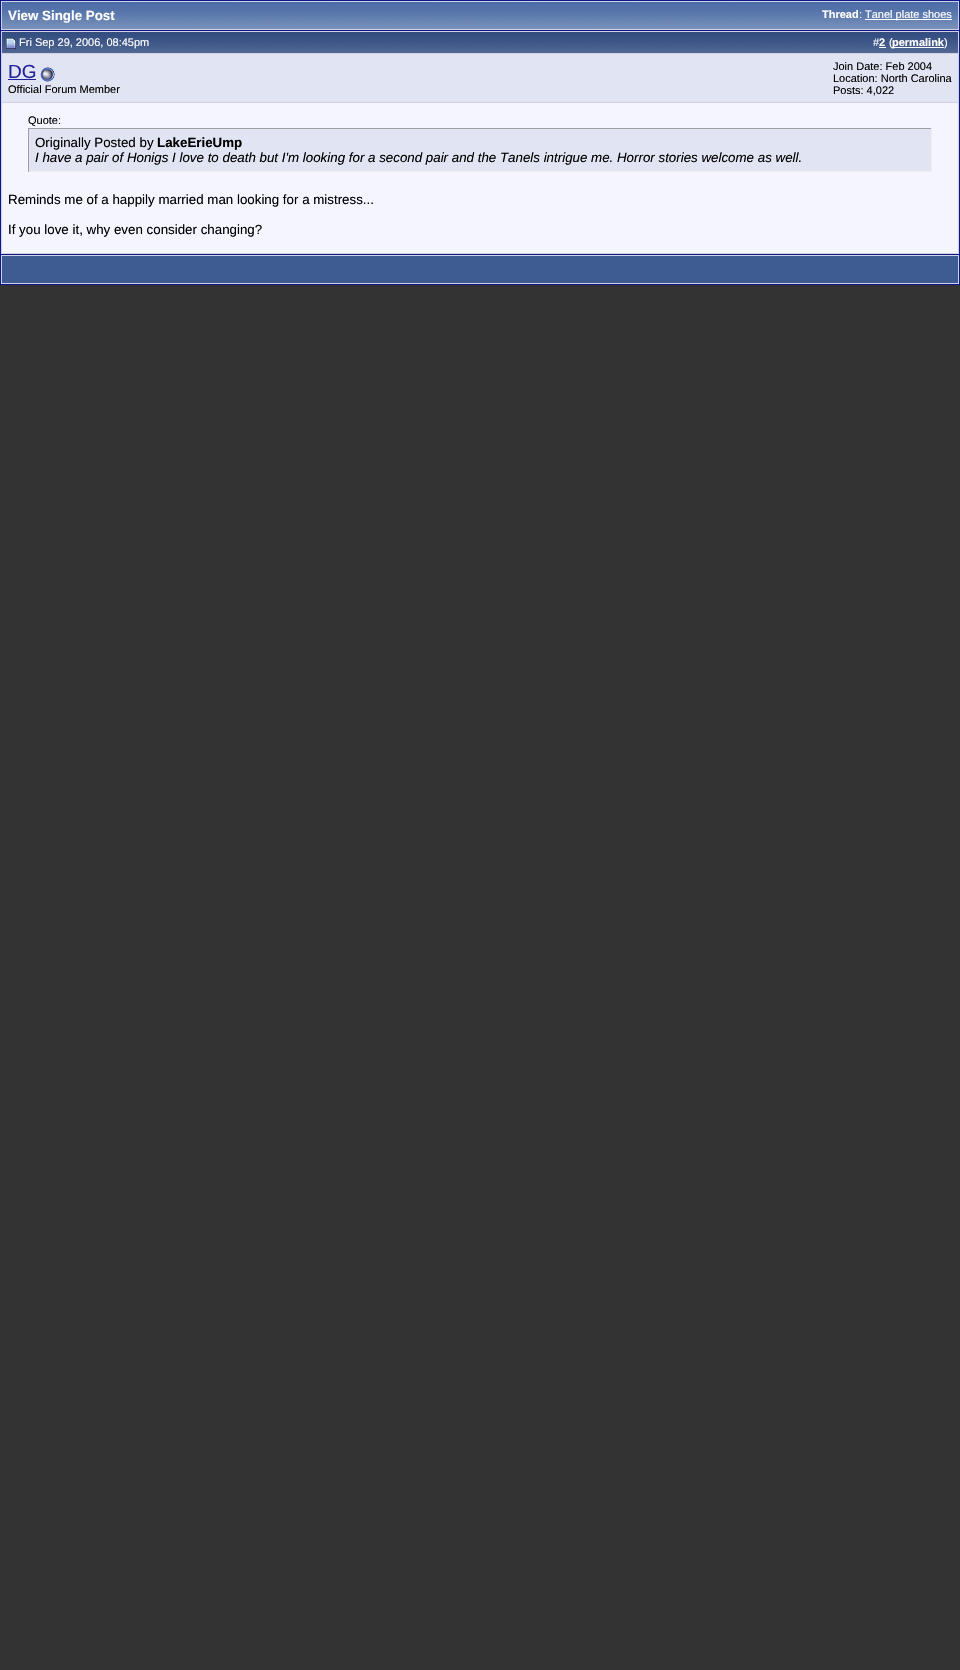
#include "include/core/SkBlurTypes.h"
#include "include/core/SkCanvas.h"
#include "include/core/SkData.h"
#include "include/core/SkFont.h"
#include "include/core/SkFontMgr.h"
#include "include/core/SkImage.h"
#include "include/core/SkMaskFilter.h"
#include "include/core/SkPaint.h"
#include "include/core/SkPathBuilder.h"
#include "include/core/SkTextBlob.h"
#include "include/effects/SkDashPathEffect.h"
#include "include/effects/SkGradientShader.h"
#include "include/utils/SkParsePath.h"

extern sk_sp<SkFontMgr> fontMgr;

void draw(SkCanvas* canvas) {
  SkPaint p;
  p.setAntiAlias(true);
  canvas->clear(SkColorSetRGB(51, 51, 51));
  p.setColor(SkColorSetRGB(209, 209, 225));
  canvas->drawRect(SkRect::MakeLTRB(1, 1, 959, 30), p);
  p.setColor(SkColorSetRGB(11, 25, 140));
  canvas->drawRect(SkRect::MakeLTRB(0, 0, 960, 1), p);
  canvas->drawRect(SkRect::MakeLTRB(959, 0, 960, 30), p);
  canvas->drawRect(SkRect::MakeLTRB(0, 0, 1, 30), p);
  canvas->drawImageRect(SkImages::DeferredFromEncodedData(SkData::MakeFromFileName("images/1.png")), SkRect::MakeLTRB(2, 2, 958, 29), SkSamplingOptions());
  p.setColor(SK_ColorWHITE);
  canvas->drawRect(SkRect::MakeLTRB(865, 19, 952, 20), p);
  p.setColor(SkColorSetRGB(209, 209, 225));
  canvas->drawRect(SkRect::MakeLTRB(0.5f, 30.5f, 959.5f, 254.5f), p);
  p.setStyle(SkPaint::kStroke_Style);
  p.setStrokeWidth(1);
  p.setColor(SkColorSetRGB(11, 25, 140));
  canvas->drawRect(SkRect::MakeLTRB(0.5f, 30.5f, 959.5f, 254.5f), p);
  canvas->drawImageRect(SkImages::DeferredFromEncodedData(SkData::MakeFromFileName("images/2.png")), SkRect::MakeLTRB(2, 32, 958, 53), SkSamplingOptions());
  canvas->drawImageRect(SkImages::DeferredFromEncodedData(SkData::MakeFromFileName("images/3.png")), SkRect::MakeLTRB(6, 38, 16, 49), SkSamplingOptions());
  p.setStyle(SkPaint::kFill_Style);
  p.setColor(SK_ColorWHITE);
  canvas->drawRect(SkRect::MakeLTRB(879, 47, 886, 48), p);
  canvas->drawRect(SkRect::MakeLTRB(892, 47, 944, 48), p);
  p.setColor(SkColorSetRGB(225, 228, 242));
  canvas->drawRect(SkRect::MakeLTRB(2, 54, 958, 102), p);
  p.setColor(SkColorSetRGB(34, 34, 156));
  canvas->drawRect(SkRect::MakeLTRB(8, 79, 36, 80), p);
  canvas->drawImageRect(SkImages::DeferredFromEncodedData(SkData::MakeFromFileName("images/4.png")), SkRect::MakeLTRB(40, 67, 55, 82), SkSamplingOptions());
  p.setColor(SkColorSetRGB(245, 245, 255));
  canvas->drawRect(SkRect::MakeLTRB(2, 103, 958, 253), p);
  p.setColor(SkColorSetRGB(225, 228, 242));
  canvas->drawRect(SkRect::MakeLTRB(29, 129, 931, 171), p);
  p.setColor(SkColorSetRGB(159, 159, 159));
  canvas->drawRect(SkRect::MakeLTRB(28, 128, 932, 129), p);
  p.setColor(SkColorSetRGB(238, 238, 238));
  canvas->drawRect(SkRect::MakeLTRB(931, 128, 932, 172), p);
  canvas->drawRect(SkRect::MakeLTRB(28, 171, 932, 172), p);
  p.setColor(SkColorSetRGB(159, 159, 159));
  canvas->drawRect(SkRect::MakeLTRB(28, 128, 29, 172), p);
  p.setColor(SkColorSetRGB(209, 209, 225));
  canvas->drawRect(SkRect::MakeLTRB(1, 255, 959, 284), p);
  p.setColor(SkColorSetRGB(11, 25, 140));
  canvas->drawRect(SkRect::MakeLTRB(959, 255, 960, 285), p);
  canvas->drawRect(SkRect::MakeLTRB(0, 284, 960, 285), p);
  canvas->drawRect(SkRect::MakeLTRB(0, 255, 1, 285), p);
  p.setColor(SkColorSetRGB(62, 92, 146));
  canvas->drawRect(SkRect::MakeLTRB(2, 256, 958, 283), p);
  SkFont font1(fontMgr->matchFamilyStyle("Liberation Sans", SkFontStyle::Bold()), 13.33f);
  font1.setSubpixel(true);
  p.setColor(SK_ColorWHITE);
  canvas->drawString("View Single Post", 8, 20, font1, p);
  SkFont font2(fontMgr->matchFamilyStyle("Liberation Sans", SkFontStyle::Bold()), 11);
  font2.setSubpixel(true);
  canvas->drawString("Thread", 822, 18, font2, p);
  SkFont font3(fontMgr->matchFamilyStyle("Liberation Sans", SkFontStyle::Normal()), 11);
  font3.setSubpixel(true);
  canvas->drawString(":", 859, 18, font3, p);
  canvas->drawString("Tanel plate shoes", 865, 18, font3, p);
  canvas->drawString("Fri Sep 29, 2006, 08:45pm", 19, 46, font3, p);
  canvas->drawString("#", 873, 46, font3, p);
  canvas->drawString("2", 879, 46, font2, p);
  canvas->drawString("(", 889, 46, font3, p);
  canvas->drawString("permalink", 892, 46, font2, p);
  canvas->drawString(")", 944, 46, font3, p);
  SkFont font4(fontMgr->matchFamilyStyle("Liberation Sans", SkFontStyle::Normal()), 19);
  font4.setSubpixel(true);
  p.setColor(SkColorSetRGB(34, 34, 156));
  canvas->drawString("DG", 8, 78, font4, p);
  p.setColor(SK_ColorBLACK);
  canvas->drawString("Official Forum Member", 8, 93, font3, p);
  canvas->drawString("Join Date: Feb 2004", 833, 70, font3, p);
  canvas->drawString("Location: North Carolina", 833, 82, font3, p);
  canvas->drawString("Posts: 4,022", 833, 94, font3, p);
  canvas->drawString("Quote:", 28, 124, font3, p);
  SkFont font5(fontMgr->matchFamilyStyle("Liberation Sans", SkFontStyle::Normal()), 13.33f);
  font5.setSubpixel(true);
  canvas->drawString("Originally Posted by", 35, 147, font5, p);
  canvas->drawString("LakeErieUmp", 157, 147, font1, p);
  SkFont font6(fontMgr->matchFamilyStyle("Liberation Sans", SkFontStyle::Italic()), 13.33f);
  font6.setSubpixel(true);
  canvas->drawString("I have a pair of Honigs I love to death but I'm looking for a second pair and the Tanels intrigue me. Horror stories welcome as well.", 35, 162, font6, p);
  canvas->drawString("Reminds me of a happily married man looking for a mistress...", 8, 204, font5, p);
  canvas->drawString("If you love it, why even consider changing?", 8, 234, font5, p);
}
